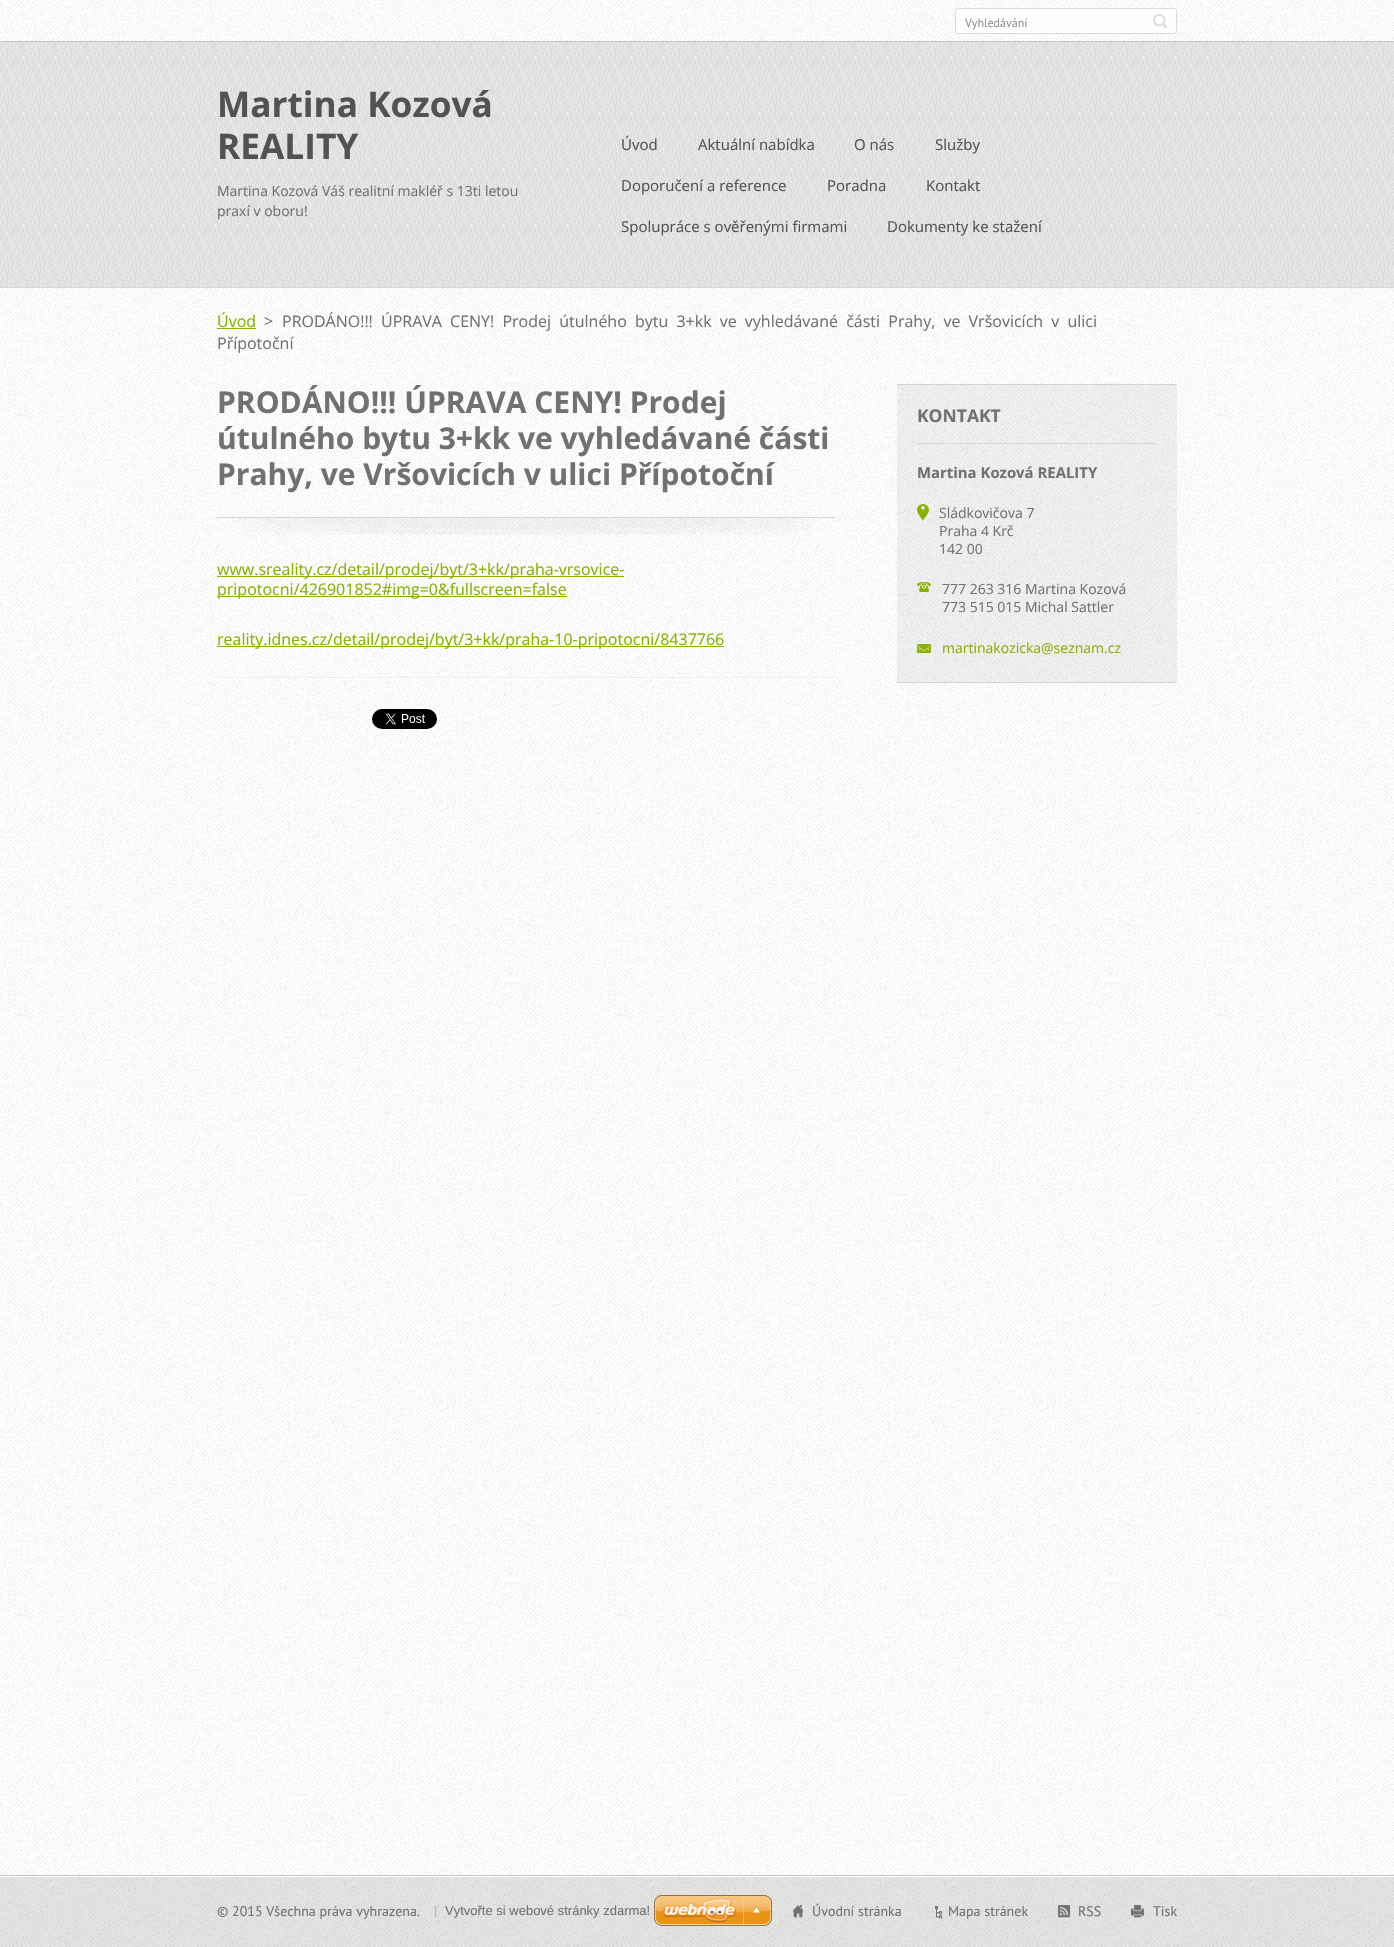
#include "include/core/SkBlurTypes.h"
#include "include/core/SkCanvas.h"
#include "include/core/SkData.h"
#include "include/core/SkFont.h"
#include "include/core/SkFontMgr.h"
#include "include/core/SkImage.h"
#include "include/core/SkMaskFilter.h"
#include "include/core/SkPaint.h"
#include "include/core/SkPathBuilder.h"
#include "include/core/SkTextBlob.h"
#include "include/effects/SkDashPathEffect.h"
#include "include/effects/SkGradientShader.h"
#include "include/utils/SkParsePath.h"

extern sk_sp<SkFontMgr> fontMgr;

void draw(SkCanvas* canvas) {
  SkPaint p;
  p.setAntiAlias(true);
  auto spacedText = [&](const char* s, float x, float y, const SkFont& font, const SkPaint& ink, float letter, float word) {
    std::vector<SkGlyphID> glyphs(font.countText(s, strlen(s), SkTextEncoding::kUTF8));
    std::vector<float> xs(glyphs.size());
    font.textToGlyphs(s, strlen(s), SkTextEncoding::kUTF8, glyphs);
    font.getXPos(glyphs, xs, x);
    float extra = 0;
    for (size_t i = 0; i < glyphs.size(); i++) {
      xs[i] += extra;
      extra += letter + word * (glyphs[i] == font.unicharToGlyph(' '));
    }
    canvas->drawTextBlob(SkTextBlob::MakeFromPosHGlyphs(glyphs, xs, y, font), 0, 0, ink);
  };
  canvas->clear(SK_ColorWHITE);
  canvas->drawImageRect(SkImages::DeferredFromEncodedData(SkData::MakeFromFileName("images/1.png")), SkRect::MakeLTRB(0, 0, 1394, 1947), SkSamplingOptions());
  p.setColor(SkColorSetRGB(194, 194, 194));
  canvas->drawRect(SkRect::MakeLTRB(0, 41, 1394, 42), p);
  p.setColor(SkColorSetRGB(254, 254, 254));
  canvas->drawRoundRect(SkRect::MakeLTRB(955.5f, 8.5f, 1176.5f, 33.5f), 2.5f, 2.5f, p);
  p.setStyle(SkPaint::kStroke_Style);
  p.setStrokeWidth(1);
  p.setColor(SkColorSetRGB(218, 218, 218));
  canvas->drawRoundRect(SkRect::MakeLTRB(955.5f, 8.5f, 1176.5f, 33.5f), 2.5f, 2.5f, p);
  canvas->drawImageRect(SkImages::DeferredFromEncodedData(SkData::MakeFromFileName("images/2.png")), SkRect::MakeLTRB(1153, 14, 1167, 28), SkSamplingOptions());
  canvas->drawImageRect(SkImages::DeferredFromEncodedData(SkData::MakeFromFileName("images/3.png")), SkRect::MakeLTRB(0, 42, 1394, 287), SkSamplingOptions());
  p.setStyle(SkPaint::kFill_Style);
  p.setColor(SkColorSetRGB(215, 215, 215));
  canvas->drawRect(SkRect::MakeLTRB(0, 287, 1394, 288), p);
  p.setColor(SkColorSetRGB(138, 176, 0));
  canvas->drawRect(SkRect::MakeLTRB(217, 328, 256, 329), p);
  canvas->drawImageRect(SkImages::DeferredFromEncodedData(SkData::MakeFromFileName("images/4.png")), SkRect::MakeLTRB(217, 517, 836, 535), SkSamplingOptions());
  canvas->drawImageRect(SkImages::DeferredFromEncodedData(SkData::MakeFromFileName("images/5.png")), SkRect::MakeLTRB(217, 677, 837, 679), SkSamplingOptions());
  canvas->drawRect(SkRect::MakeLTRB(217, 576, 624, 577), p);
  canvas->drawRect(SkRect::MakeLTRB(217, 596, 567, 597), p);
  canvas->drawRect(SkRect::MakeLTRB(217, 646, 724, 647), p);
  canvas->drawImageRect(SkImages::DeferredFromEncodedData(SkData::MakeFromFileName("images/6.png")), SkRect::MakeLTRB(372, 709, 437, 729), SkSamplingOptions());
  p.setColor(SkColorSetARGB(13, 0, 0, 0));
  canvas->drawRect(SkRect::MakeLTRB(897, 385, 1177, 682), p);
  p.setColor(SkColorSetRGB(211, 211, 211));
  canvas->drawRect(SkRect::MakeLTRB(897, 384, 1177, 385), p);
  canvas->drawRect(SkRect::MakeLTRB(897, 682, 1177, 683), p);
  canvas->drawImageRect(SkImages::DeferredFromEncodedData(SkData::MakeFromFileName("images/7.png")), SkRect::MakeLTRB(917, 443, 1157, 444), SkSamplingOptions());
  canvas->drawImageRect(SkImages::DeferredFromEncodedData(SkData::MakeFromFileName("images/8.png")), SkRect::MakeLTRB(917, 504, 929, 521), SkSamplingOptions());
  canvas->drawImageRect(SkImages::DeferredFromEncodedData(SkData::MakeFromFileName("images/9.png")), SkRect::MakeLTRB(917, 582, 931, 592), SkSamplingOptions());
  canvas->drawImageRect(SkImages::DeferredFromEncodedData(SkData::MakeFromFileName("images/10.png")), SkRect::MakeLTRB(917, 644, 931, 653), SkSamplingOptions());
  p.setColor(SkColorSetRGB(198, 198, 198));
  canvas->drawRect(SkRect::MakeLTRB(0, 1875, 1394, 1876), p);
  p.setColor(SkColorSetARGB(26, 0, 0, 0));
  canvas->drawRect(SkRect::MakeLTRB(0, 1877, 1394, 1947), p);
  p.setColor(SK_ColorWHITE);
  canvas->drawRect(SkRect::MakeLTRB(0, 1876, 1394, 1877), p);
  canvas->drawImageRect(SkImages::DeferredFromEncodedData(SkData::MakeFromFileName("images/11.png")), SkRect::MakeLTRB(793, 1905, 803, 1918), SkSamplingOptions());
  canvas->drawImageRect(SkImages::DeferredFromEncodedData(SkData::MakeFromFileName("images/12.png")), SkRect::MakeLTRB(935, 1906, 942, 1919), SkSamplingOptions());
  canvas->drawImageRect(SkImages::DeferredFromEncodedData(SkData::MakeFromFileName("images/13.png")), SkRect::MakeLTRB(1058, 1905, 1070, 1918), SkSamplingOptions());
  canvas->drawImageRect(SkImages::DeferredFromEncodedData(SkData::MakeFromFileName("images/14.png")), SkRect::MakeLTRB(1131, 1905, 1144, 1918), SkSamplingOptions());
  canvas->drawImageRect(SkImages::DeferredFromEncodedData(SkData::MakeFromFileName("images/15.png")), SkRect::MakeLTRB(654, 1895, 772, 1926), SkSamplingOptions());
  SkFont font1(fontMgr->matchFamilyStyle("PT Sans", SkFontStyle::Normal()), 12);
  font1.setSubpixel(true);
  p.setColor(SkColorSetRGB(144, 144, 144));
  canvas->drawString("Vyhledávání", 965, 27, font1, p);
  SkFont font2(fontMgr->matchFamilyStyle("Open Sans", SkFontStyle::Bold()), 35.25f);
  font2.setSubpixel(true);
  p.setColor(SkColorSetRGB(82, 82, 82));
  canvas->drawString("Martina Kozová", 217, 117, font2, p);
  canvas->drawString("REALITY", 217, 159, font2, p);
  SkFont font3(fontMgr->matchFamilyStyle("Open Sans", SkFontStyle::Normal()), 14);
  font3.setSubpixel(true);
  p.setColor(SkColorSetRGB(113, 113, 113));
  canvas->drawString("Martina Kozová Váš realitní makléř s 13ti letou", 217, 196, font3, p);
  canvas->drawString("praxí v oboru!", 217, 216, font3, p);
  SkFont font4(fontMgr->matchFamilyStyle("Open Sans", SkFontStyle::Normal()), 15);
  font4.setSubpixel(true);
  p.setColor(SkColorSetRGB(82, 82, 82));
  canvas->drawString("Úvod", 621, 150, font4, p);
  canvas->drawString("Aktuální nabídka", 698, 150, font4, p);
  canvas->drawString("O nás", 854, 150, font4, p);
  canvas->drawString("Služby", 935, 150, font4, p);
  canvas->drawString("Doporučení a reference", 621, 191, font4, p);
  canvas->drawString("Poradna", 827, 191, font4, p);
  canvas->drawString("Kontakt", 926, 191, font4, p);
  canvas->drawString("Spolupráce s ověřenými firmami", 621, 232, font4, p);
  canvas->drawString("Dokumenty ke stažení", 887, 232, font4, p);
  SkFont font5(fontMgr->matchFamilyStyle("Open Sans", SkFontStyle::Normal()), 16);
  font5.setSubpixel(true);
  p.setColor(SkColorSetRGB(138, 176, 0));
  canvas->drawString("Úvod", 217, 327, font5, p);
  p.setColor(SkColorSetRGB(113, 113, 113));
  canvas->drawString(">", 264, 327, font5, p);
  spacedText("PRODÁNO!!! ÚPRAVA CENY! Prodej útulného bytu 3+kk ve vyhledávané části Prahy, ve Vršovicích v ulici", 282, 327, font5, p, 0, 4);
  canvas->drawString("Přípotoční", 217, 349, font5, p);
  SkFont font6(fontMgr->matchFamilyStyle("Open Sans", SkFontStyle::Bold()), 30);
  font6.setSubpixel(true);
  canvas->drawString("PRODÁNO!!! ÚPRAVA CENY! Prodej", 217, 413, font6, p);
  canvas->drawString("útulného bytu 3+kk ve vyhledávané části", 217, 449, font6, p);
  canvas->drawString("Prahy, ve Vršovicích v ulici Přípotoční", 217, 485, font6, p);
  p.setColor(SkColorSetRGB(138, 176, 0));
  canvas->drawString("www.sreality.cz/detail/prodej/byt/3+kk/praha-vrsovice-", 217, 575, font5, p);
  canvas->drawString("pripotocni/426901852#img=0&fullscreen=false", 217, 595, font5, p);
  canvas->drawString("reality.idnes.cz/detail/prodej/byt/3+kk/praha-10-pripotocni/8437766", 217, 645, font5, p);
  SkFont font7(fontMgr->matchFamilyStyle("Open Sans", SkFontStyle::Bold()), 17.5f);
  font7.setSubpixel(true);
  p.setColor(SkColorSetRGB(113, 113, 113));
  canvas->drawString("KONTAKT", 917, 422, font7, p);
  SkFont font8(fontMgr->matchFamilyStyle("Open Sans", SkFontStyle::Bold()), 14.9f);
  font8.setSubpixel(true);
  canvas->drawString("Martina Kozová REALITY", 917, 478, font8, p);
  canvas->drawString("Sládkovičova 7", 939, 518, font3, p);
  canvas->drawString("Praha 4 Krč", 939, 536, font3, p);
  canvas->drawString("142 00", 939, 554, font3, p);
  canvas->drawString("777 263 316 Martina Kozová", 942, 594, font3, p);
  canvas->drawString("773 515 015 Michal Sattler", 942, 612, font3, p);
  p.setColor(SkColorSetRGB(138, 176, 0));
  canvas->drawString("martinakozicka@seznam.cz", 942, 653, font3, p);
  SkFont font9(fontMgr->matchFamilyStyle("PT Sans", SkFontStyle::Normal()), 14);
  font9.setSubpixel(true);
  p.setColor(SkColorSetRGB(113, 113, 113));
  canvas->drawString("© 2015 Všechna práva vyhrazena.", 217, 1916, font9, p);
  p.setColor(SkColorSetRGB(175, 175, 175));
  canvas->drawString("|", 434, 1916, font9, p);
  p.setColor(SkColorSetRGB(113, 113, 113));
  canvas->drawString("Úvodní stránka", 812, 1916, font9, p);
  canvas->drawString("Mapa stránek", 948, 1916, font9, p);
  canvas->drawString("RSS", 1078, 1916, font9, p);
  canvas->drawString("Tisk", 1153, 1916, font9, p);
  SkFont font10(fontMgr->matchFamilyStyle("Liberation Sans", SkFontStyle::Normal()), 13);
  font10.setSubpixel(true);
  canvas->drawString("Vytvořte si webové stránky zdarma!", 445, 1915, font10, p);
}
